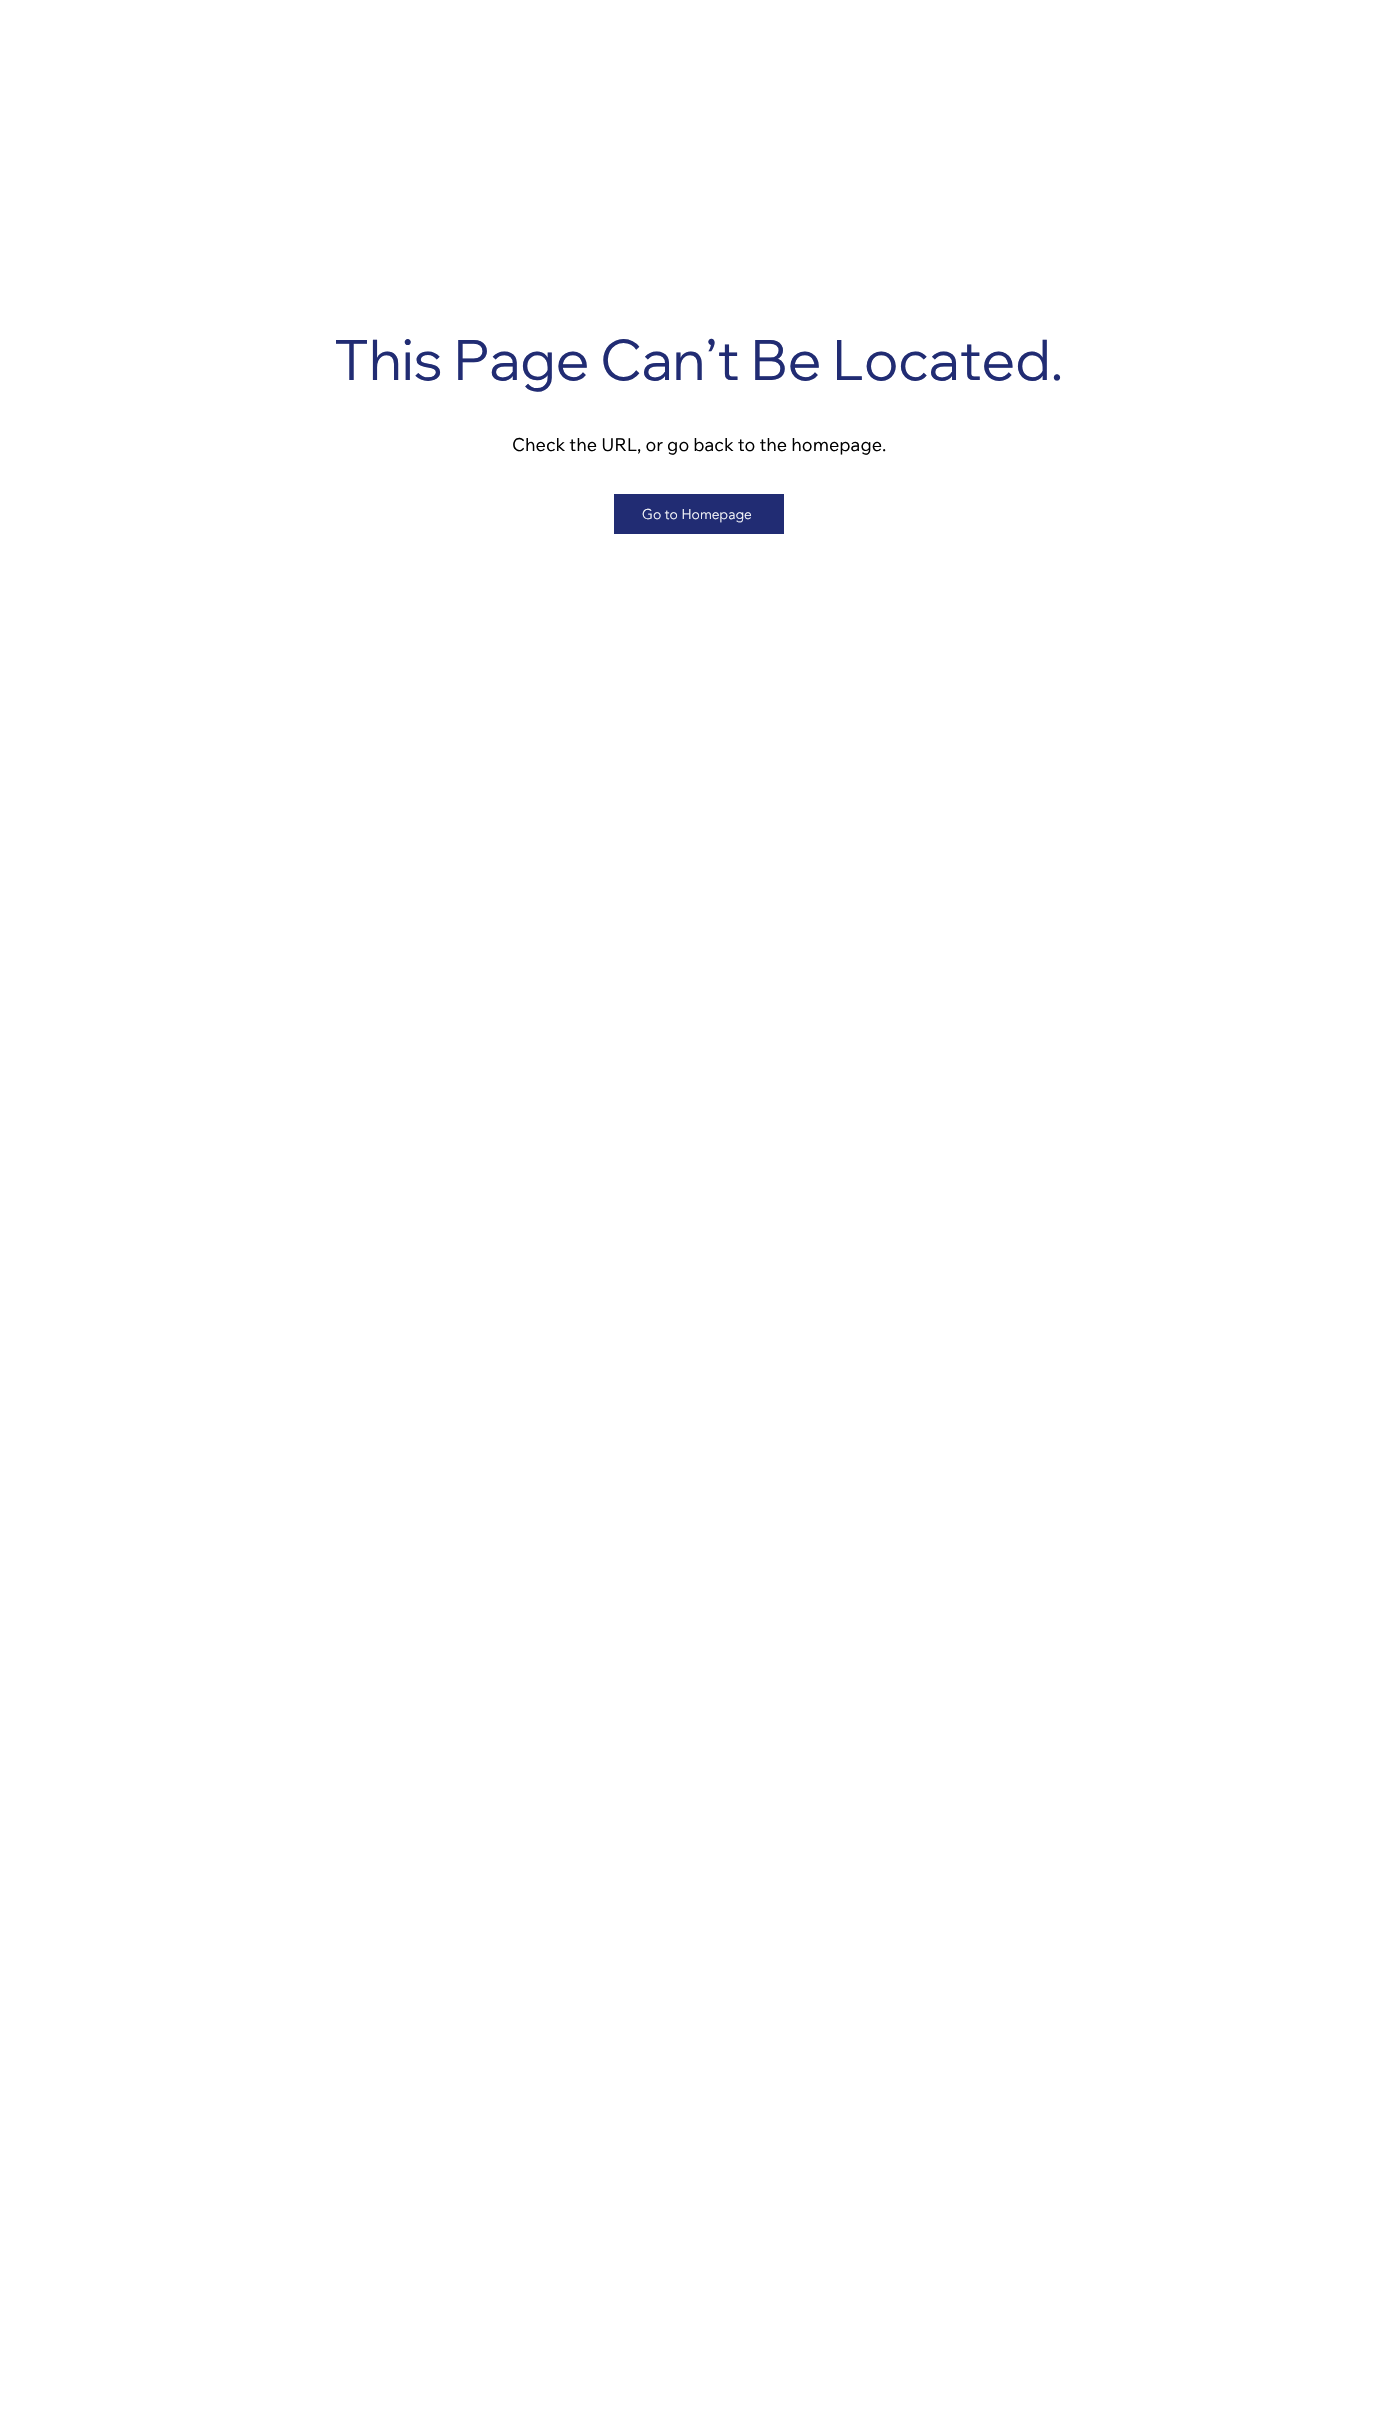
#include "include/core/SkBlurTypes.h"
#include "include/core/SkCanvas.h"
#include "include/core/SkData.h"
#include "include/core/SkFont.h"
#include "include/core/SkFontMgr.h"
#include "include/core/SkImage.h"
#include "include/core/SkMaskFilter.h"
#include "include/core/SkPaint.h"
#include "include/core/SkPathBuilder.h"
#include "include/core/SkTextBlob.h"
#include "include/effects/SkDashPathEffect.h"
#include "include/effects/SkGradientShader.h"
#include "include/utils/SkParsePath.h"

extern sk_sp<SkFontMgr> fontMgr;

void draw(SkCanvas* canvas) {
  SkPaint p;
  p.setAntiAlias(true);
  canvas->clear(SK_ColorWHITE);
  p.setColor(SkColorSetRGB(33, 44, 115));
  canvas->drawRect(SkRect::MakeLTRB(614, 494, 784, 534), p);
  SkFont font1(fontMgr->matchFamilyStyle("Wix Madefor Display", SkFontStyle::Normal()), 56);
  font1.setSubpixel(true);
  canvas->drawString("This Page Can’t Be Located.", 334, 380, font1, p);
  SkFont font2(fontMgr->matchFamilyStyle("Wix Madefor Text", SkFontStyle::Normal()), 18);
  font2.setSubpixel(true);
  p.setColor(SK_ColorBLACK);
  canvas->drawString("Check the URL, or go back to the homepage.", 512, 451, font2, p);
  SkFont font3(fontMgr->matchFamilyStyle("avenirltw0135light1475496", SkFontStyle(300, SkFontStyle::kNormal_Width, SkFontStyle::kUpright_Slant)), 14);
  font3.setSubpixel(true);
  p.setColor(SK_ColorWHITE);
  canvas->drawString("Go to Homepage", 642, 519, font3, p);
}
